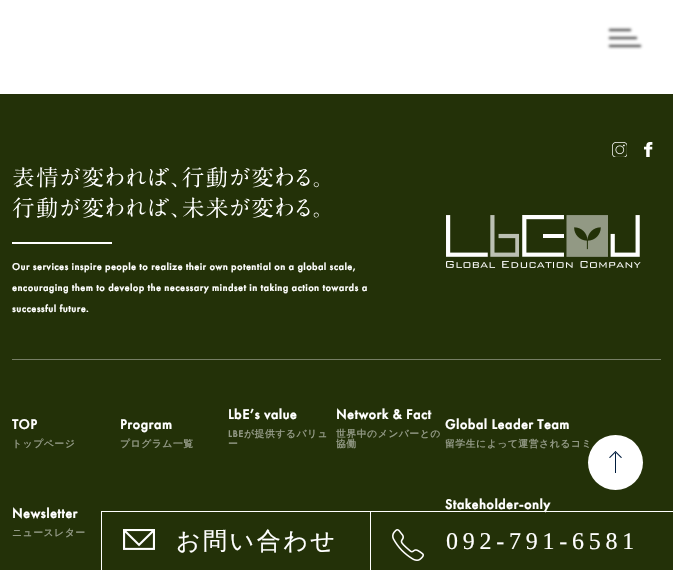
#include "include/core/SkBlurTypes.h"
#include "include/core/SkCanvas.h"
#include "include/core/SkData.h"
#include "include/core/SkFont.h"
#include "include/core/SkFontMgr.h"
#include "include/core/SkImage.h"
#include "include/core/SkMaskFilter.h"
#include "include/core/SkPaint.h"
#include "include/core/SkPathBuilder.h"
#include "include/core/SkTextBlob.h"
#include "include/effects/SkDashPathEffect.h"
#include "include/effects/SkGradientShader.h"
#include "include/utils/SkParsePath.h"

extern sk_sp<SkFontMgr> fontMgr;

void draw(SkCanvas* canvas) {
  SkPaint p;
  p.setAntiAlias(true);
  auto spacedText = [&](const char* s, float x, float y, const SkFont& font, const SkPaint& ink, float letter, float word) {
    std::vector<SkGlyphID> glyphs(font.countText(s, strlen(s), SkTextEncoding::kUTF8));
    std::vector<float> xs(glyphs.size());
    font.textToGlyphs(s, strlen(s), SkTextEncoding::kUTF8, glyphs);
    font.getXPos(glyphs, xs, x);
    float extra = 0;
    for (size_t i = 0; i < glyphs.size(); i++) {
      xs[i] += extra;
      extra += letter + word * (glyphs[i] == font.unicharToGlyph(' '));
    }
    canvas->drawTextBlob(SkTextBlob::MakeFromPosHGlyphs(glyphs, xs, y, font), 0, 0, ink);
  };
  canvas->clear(SK_ColorWHITE);
  p.setColor(SkColorSetARGB(204, 0, 0, 0));
  p.setMaskFilter(SkMaskFilter::MakeBlur(kNormal_SkBlurStyle, 1.5f));
  canvas->drawRect(SkRect::MakeLTRB(609, 37, 637, 39), p);
  p.setMaskFilter(nullptr);
  p.setMaskFilter(SkMaskFilter::MakeBlur(kNormal_SkBlurStyle, 1.5f));
  canvas->drawRect(SkRect::MakeLTRB(609, 29, 631, 31), p);
  p.setMaskFilter(nullptr);
  p.setMaskFilter(SkMaskFilter::MakeBlur(kNormal_SkBlurStyle, 1.5f));
  canvas->drawRect(SkRect::MakeLTRB(609, 45, 641, 47), p);
  p.setMaskFilter(nullptr);
  p.setColor(SkColorSetRGB(35, 49, 8));
  canvas->drawRect(SkRect::MakeLTRB(0, 94, 673, 570), p);
  p.setColor(SkColorSetRGB(118, 126, 101));
  canvas->drawRect(SkRect::MakeLTRB(12, 359, 661, 360), p);
  canvas->drawImageRect(SkImages::DeferredFromEncodedData(SkData::MakeFromFileName("images/1.png")), SkRect::MakeLTRB(612, 142, 627, 157), SkSamplingOptions());
  canvas->drawImageRect(SkImages::DeferredFromEncodedData(SkData::MakeFromFileName("images/2.png")), SkRect::MakeLTRB(644, 142, 653, 157), SkSamplingOptions());
  canvas->drawImageRect(SkImages::DeferredFromEncodedData(SkData::MakeFromFileName("images/3.png")), SkRect::MakeLTRB(446, 215, 641, 268), SkSamplingOptions());
  canvas->drawImageRect(SkImages::DeferredFromEncodedData(SkData::MakeFromFileName("images/4.png")), SkRect::MakeLTRB(12, 167, 319, 218), SkSamplingOptions());
  p.setColor(SK_ColorWHITE);
  canvas->drawRect(SkRect::MakeLTRB(12, 242, 112, 244), p);
  canvas->drawRect(SkRect::MakeLTRB(101, 511, 673, 512), p);
  canvas->drawRect(SkRect::MakeLTRB(101, 511, 102, 570), p);
  canvas->drawRect(SkRect::MakeLTRB(370, 512, 371, 570), p);
  canvas->drawImageRect(SkImages::DeferredFromEncodedData(SkData::MakeFromFileName("images/5.png")), SkRect::MakeLTRB(123, 529, 155, 550), SkSamplingOptions());
  canvas->drawImageRect(SkImages::DeferredFromEncodedData(SkData::MakeFromFileName("images/6.png")), SkRect::MakeLTRB(392, 529, 424, 561), SkSamplingOptions());
  SkFont font1(fontMgr->matchFamilyStyle("Futura PT", SkFontStyle::Bold()), 10);
  font1.setSubpixel(true);
  spacedText("Our services inspire people to realize their own potential on a global scale,", 12, 270, font1, p, 0.6f, 0);
  spacedText("encouraging them to develop the necessary mindset in taking action towards a", 12, 291, font1, p, 0.6f, 0);
  spacedText("successful future.", 12, 312, font1, p, 0.6f, 0);
  SkFont font2(fontMgr->matchFamilyStyle("Futura PT", SkFontStyle::Bold()), 14);
  font2.setSubpixel(true);
  spacedText("TOP", 12, 429, font2, p, 0.6f, 0);
  SkFont font3(fontMgr->matchFamilyStyle("WenQuanYi Zen Hei", SkFontStyle::Bold()), 9.75f);
  font3.setSubpixel(true);
  p.setColor(SkColorSetRGB(145, 152, 132));
  spacedText("トップページ", 12, 447, font3, p, 0.6f, 0);
  p.setColor(SK_ColorWHITE);
  spacedText("Program", 120, 429, font2, p, 0.6f, 0);
  p.setColor(SkColorSetRGB(145, 152, 132));
  spacedText("プログラム一覧", 120, 447, font3, p, 0.6f, 0);
  p.setColor(SK_ColorWHITE);
  spacedText("LbE’s value", 228, 419, font2, p, 0.6f, 0);
  SkFont font4(fontMgr->matchFamilyStyle("Futura PT", SkFontStyle::Bold()), 9.75f);
  font4.setSubpixel(true);
  p.setColor(SkColorSetRGB(145, 152, 132));
  spacedText("LBE", 228, 437, font4, p, 0.6f, 0);
  spacedText("が提供するバリュ", 244, 437, font3, p, 0.6f, 0);
  spacedText("ー", 228, 447, font3, p, 0.6f, 0);
  p.setColor(SK_ColorWHITE);
  spacedText("Network & Fact", 336, 419, font2, p, 0.6f, 0);
  p.setColor(SkColorSetRGB(145, 152, 132));
  spacedText("世界中のメンバーとの", 336, 437, font3, p, 0.6f, 0);
  spacedText("協働", 336, 447, font3, p, 0.6f, 0);
  p.setColor(SK_ColorWHITE);
  spacedText("Global Leader Team", 445, 429, font2, p, 0.6f, 0);
  p.setColor(SkColorSetRGB(145, 152, 132));
  spacedText("留学生によって運営されるコミ", 445, 447, font3, p, 0.6f, 0);
  p.setColor(SK_ColorWHITE);
  spacedText("Stakeholder-only", 445, 509, font2, p, 0.6f, 0);
  spacedText("Newsletter", 12, 518, font2, p, 0.6f, 0);
  p.setColor(SkColorSetRGB(145, 152, 132));
  spacedText("ニュースレター", 12, 536, font3, p, 0.6f, 0);
  p.setColor(SK_ColorWHITE);
  canvas->drawCircle(615.5f, 462.5f, 27.5f, p);
  p.setColor(SkColorSetRGB(0, 28, 61));
  canvas->drawRect(SkRect::MakeLTRB(615, 453, 616, 473), p);
  canvas->drawPath(SkPathBuilder().moveTo(609, 457.5f).lineTo(615.5f, 451).lineTo(616, 452).lineTo(610, 458).close().detach(), p);
  canvas->drawPath(SkPathBuilder().moveTo(615, 452).lineTo(615.5f, 451).lineTo(622, 457.5f).lineTo(621, 458).close().detach(), p);
  SkFont font5(fontMgr->matchFamilyStyle("WenQuanYi Zen Hei", SkFontStyle(500, SkFontStyle::kNormal_Width, SkFontStyle::kUpright_Slant)), 24);
  font5.setSubpixel(true);
  p.setColor(SK_ColorWHITE);
  spacedText("お問い合わせ", 176, 549, font5, p, 2.5f, 0);
  p.setColor(SkColorSetRGB(35, 49, 8));
  canvas->drawRect(SkRect::MakeLTRB(543, 512, 545, 513), p);
  SkFont font6(fontMgr->matchFamilyStyle("Liberation Serif", SkFontStyle::Normal()), 24);
  font6.setSubpixel(true);
  p.setColor(SK_ColorWHITE);
  spacedText("092-791-6581", 446, 549, font6, p, 4.75f, 0);
}
